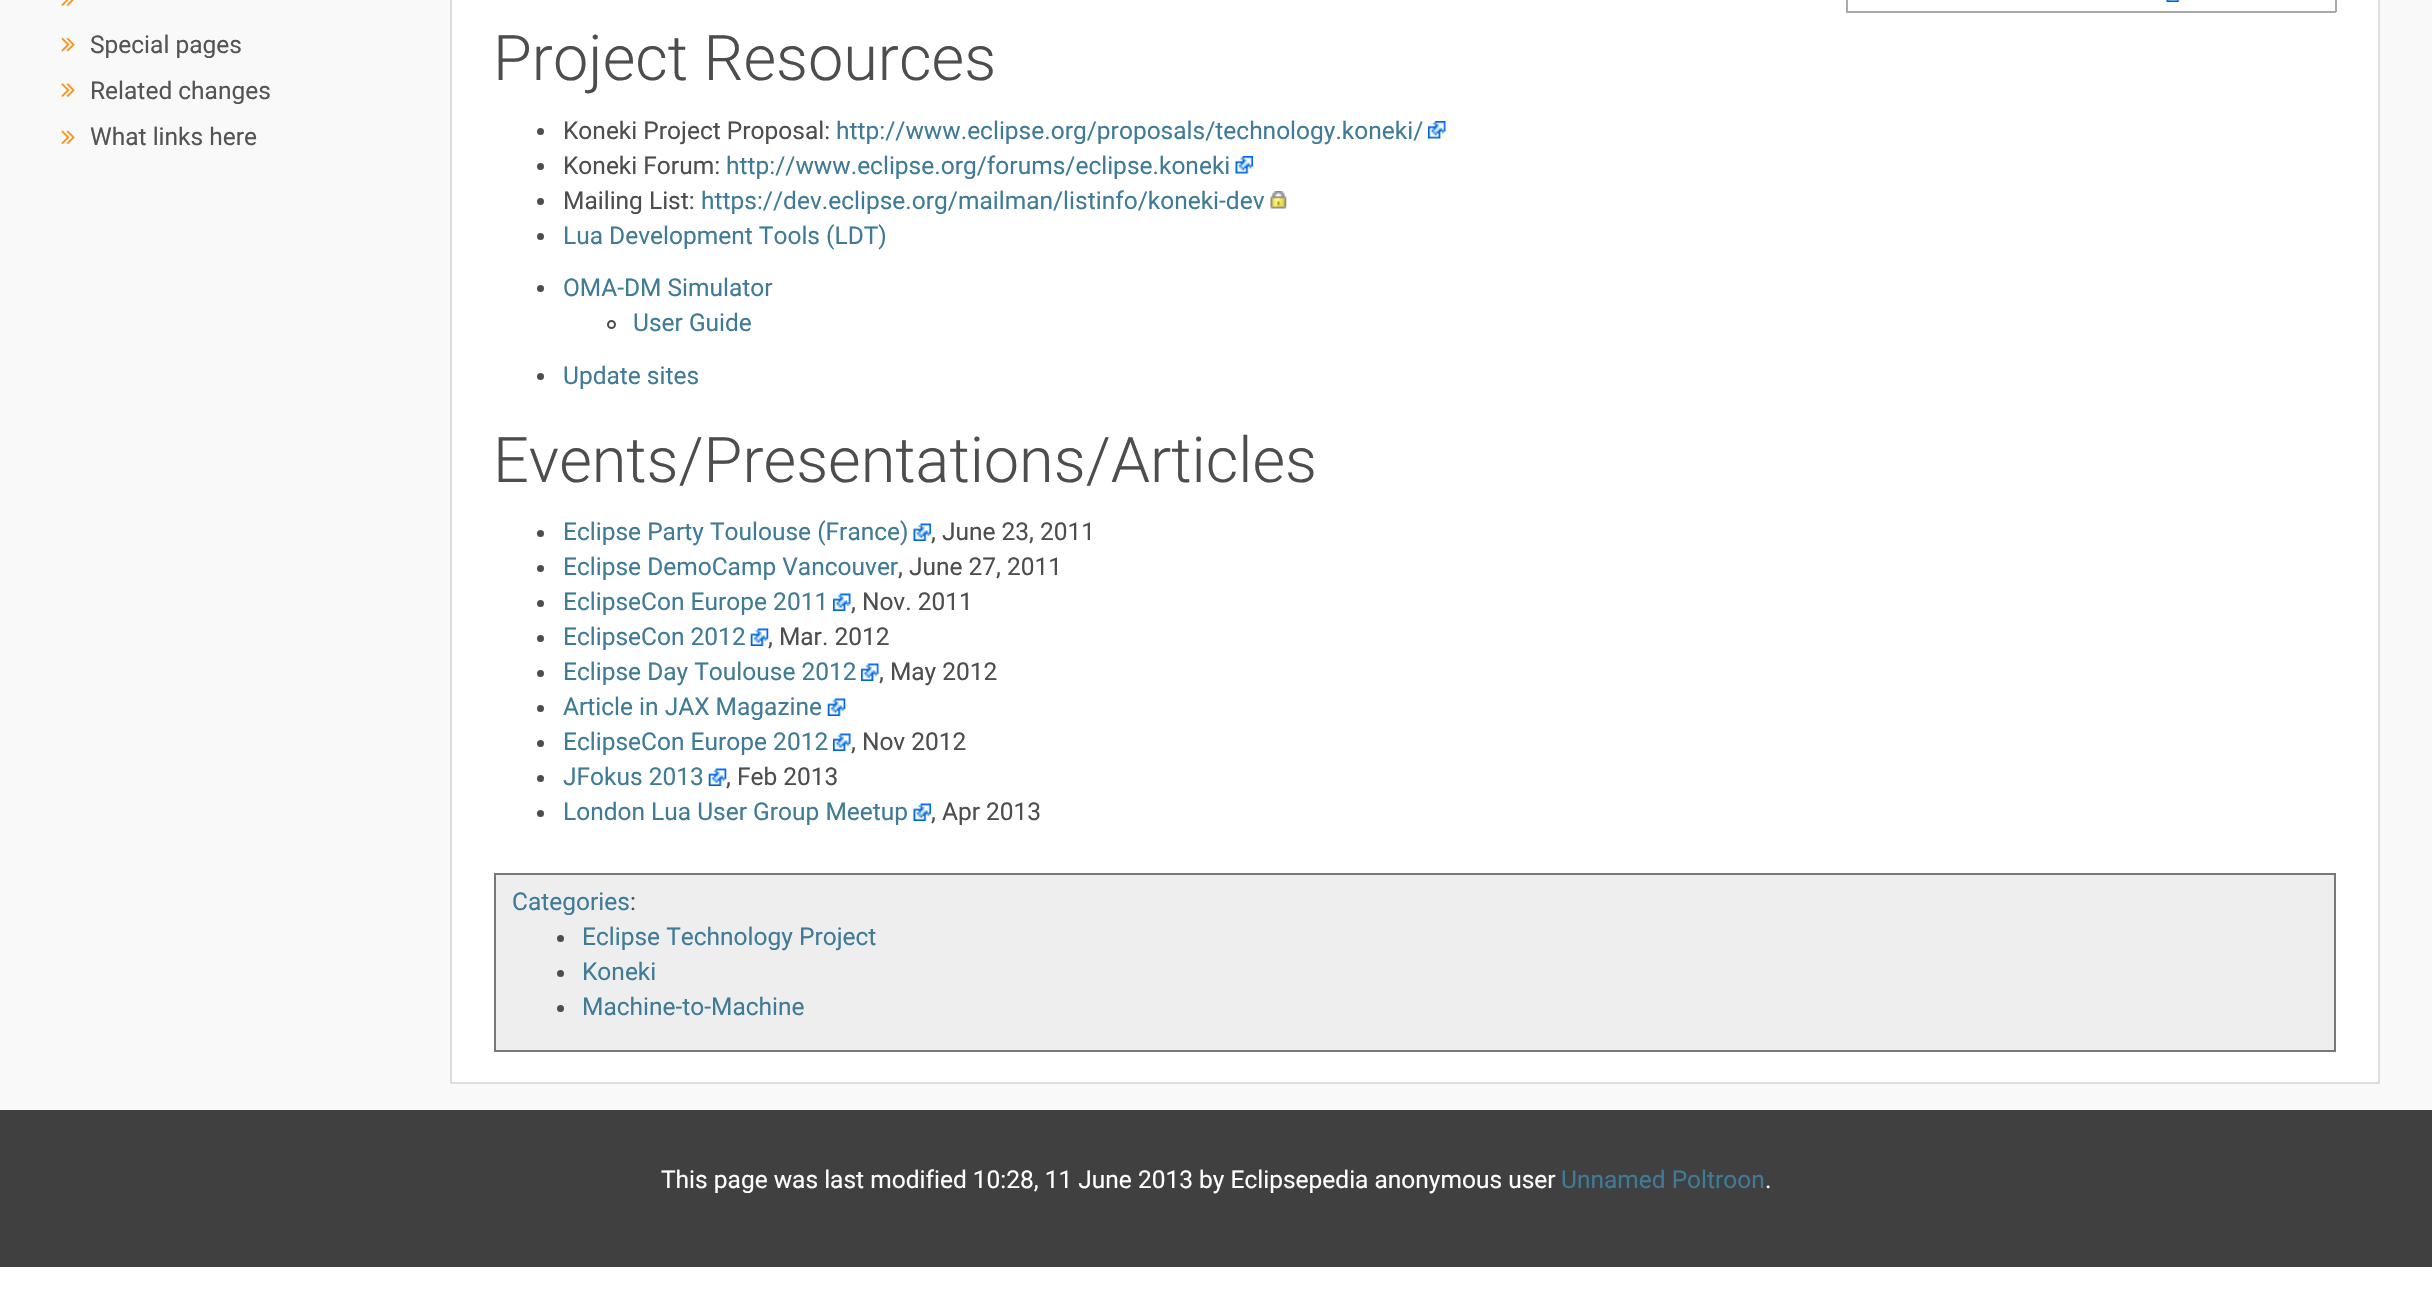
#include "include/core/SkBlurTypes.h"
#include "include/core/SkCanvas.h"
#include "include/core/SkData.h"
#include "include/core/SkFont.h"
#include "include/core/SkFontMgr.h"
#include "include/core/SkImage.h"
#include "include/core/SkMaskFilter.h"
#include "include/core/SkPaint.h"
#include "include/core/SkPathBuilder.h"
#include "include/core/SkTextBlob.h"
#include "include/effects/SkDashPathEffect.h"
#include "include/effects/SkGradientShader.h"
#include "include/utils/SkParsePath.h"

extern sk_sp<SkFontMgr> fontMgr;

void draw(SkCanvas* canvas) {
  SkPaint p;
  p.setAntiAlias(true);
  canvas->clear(SkColorSetRGB(249, 249, 249));
  canvas->drawImageRect(SkImages::DeferredFromEncodedData(SkData::MakeFromFileName("images/1.png")), SkRect::MakeLTRB(61, 0, 74, 6), SkSamplingOptions());
  canvas->drawImageRect(SkImages::DeferredFromEncodedData(SkData::MakeFromFileName("images/2.png")), SkRect::MakeLTRB(61, 37, 75, 52), SkSamplingOptions());
  canvas->drawImageRect(SkImages::DeferredFromEncodedData(SkData::MakeFromFileName("images/3.png")), SkRect::MakeLTRB(61, 83, 75, 97), SkSamplingOptions());
  canvas->drawImageRect(SkImages::DeferredFromEncodedData(SkData::MakeFromFileName("images/4.png")), SkRect::MakeLTRB(61, 130, 75, 145), SkSamplingOptions());
  p.setColor(SK_ColorWHITE);
  canvas->drawRect(SkRect::MakeLTRB(452, 0, 2378, 1082), p);
  p.setColor(SkColorSetRGB(221, 221, 221));
  canvas->drawRect(SkRect::MakeLTRB(2378, 0, 2380, 1083), p);
  canvas->drawRect(SkRect::MakeLTRB(450, 1082, 2380, 1084), p);
  canvas->drawRect(SkRect::MakeLTRB(450, 0, 452, 1083), p);
  p.setColor(SkColorSetRGB(170, 170, 170));
  canvas->drawRect(SkRect::MakeLTRB(2335, 0, 2337, 12), p);
  canvas->drawRect(SkRect::MakeLTRB(1846, 11, 2336, 13), p);
  canvas->drawRect(SkRect::MakeLTRB(1846, 0, 1848, 12), p);
  canvas->drawImageRect(SkImages::DeferredFromEncodedData(SkData::MakeFromFileName("images/5.png")), SkRect::MakeLTRB(2166, 0, 2180, 2), SkSamplingOptions());
  p.setColor(SkColorSetRGB(76, 77, 78));
  canvas->drawCircle(540.5f, 131.5f, 3.5f, p);
  canvas->drawImageRect(SkImages::DeferredFromEncodedData(SkData::MakeFromFileName("images/6.png")), SkRect::MakeLTRB(1428, 121, 1446, 139), SkSamplingOptions());
  canvas->drawCircle(540.5f, 166.5f, 3.5f, p);
  canvas->drawImageRect(SkImages::DeferredFromEncodedData(SkData::MakeFromFileName("images/7.png")), SkRect::MakeLTRB(1235, 156, 1253, 174), SkSamplingOptions());
  canvas->drawCircle(540.5f, 201.5f, 3.5f, p);
  canvas->drawImageRect(SkImages::DeferredFromEncodedData(SkData::MakeFromFileName("images/8.png")), SkRect::MakeLTRB(1270, 191, 1287, 209), SkSamplingOptions());
  canvas->drawCircle(540.5f, 236.5f, 3.5f, p);
  canvas->drawCircle(540.5f, 288.5f, 3.5f, p);
  p.setStyle(SkPaint::kStroke_Style);
  p.setStrokeWidth(2);
  canvas->drawCircle(611.5f, 324.5f, 3.5f, p);
  p.setStyle(SkPaint::kFill_Style);
  canvas->drawCircle(540.5f, 376.5f, 3.5f, p);
  canvas->drawCircle(540.5f, 533.5f, 3.5f, p);
  canvas->drawImageRect(SkImages::DeferredFromEncodedData(SkData::MakeFromFileName("images/9.png")), SkRect::MakeLTRB(913, 523, 931, 541), SkSamplingOptions());
  canvas->drawCircle(540.5f, 568.5f, 3.5f, p);
  canvas->drawCircle(540.5f, 603.5f, 3.5f, p);
  canvas->drawImageRect(SkImages::DeferredFromEncodedData(SkData::MakeFromFileName("images/10.png")), SkRect::MakeLTRB(833, 593, 851, 611), SkSamplingOptions());
  canvas->drawCircle(540.5f, 638.5f, 3.5f, p);
  canvas->drawImageRect(SkImages::DeferredFromEncodedData(SkData::MakeFromFileName("images/11.png")), SkRect::MakeLTRB(750, 628, 769, 646), SkSamplingOptions());
  canvas->drawCircle(540.5f, 673.5f, 3.5f, p);
  canvas->drawImageRect(SkImages::DeferredFromEncodedData(SkData::MakeFromFileName("images/12.png")), SkRect::MakeLTRB(861, 663, 879, 681), SkSamplingOptions());
  canvas->drawCircle(540.5f, 708.5f, 3.5f, p);
  canvas->drawImageRect(SkImages::DeferredFromEncodedData(SkData::MakeFromFileName("images/13.png")), SkRect::MakeLTRB(827, 698, 846, 716), SkSamplingOptions());
  canvas->drawCircle(540.5f, 743.5f, 3.5f, p);
  canvas->drawImageRect(SkImages::DeferredFromEncodedData(SkData::MakeFromFileName("images/14.png")), SkRect::MakeLTRB(833, 733, 851, 751), SkSamplingOptions());
  canvas->drawCircle(540.5f, 778.5f, 3.5f, p);
  canvas->drawImageRect(SkImages::DeferredFromEncodedData(SkData::MakeFromFileName("images/13.png")), SkRect::MakeLTRB(708, 768, 727, 786), SkSamplingOptions());
  canvas->drawCircle(540.5f, 813.5f, 3.5f, p);
  canvas->drawImageRect(SkImages::DeferredFromEncodedData(SkData::MakeFromFileName("images/9.png")), SkRect::MakeLTRB(913, 803, 931, 821), SkSamplingOptions());
  p.setColor(SkColorSetRGB(238, 238, 238));
  canvas->drawRect(SkRect::MakeLTRB(495, 874, 2335, 1051), p);
  p.setStyle(SkPaint::kStroke_Style);
  p.setColor(SkColorSetRGB(119, 119, 119));
  canvas->drawRect(SkRect::MakeLTRB(495, 874, 2335, 1051), p);
  p.setStyle(SkPaint::kFill_Style);
  p.setColor(SkColorSetRGB(76, 77, 78));
  canvas->drawCircle(560.5f, 938.5f, 3.5f, p);
  canvas->drawCircle(560.5f, 973.5f, 3.5f, p);
  canvas->drawCircle(560.5f, 1008.5f, 3.5f, p);
  p.setColor(SkColorSetRGB(64, 64, 64));
  canvas->drawRect(SkRect::MakeLTRB(0, 1110, 2432, 1267), p);
  p.setColor(SK_ColorWHITE);
  canvas->drawRect(SkRect::MakeLTRB(0, 1267, 2432, 1313), p);
  SkFont font1(fontMgr->matchFamilyStyle("Roboto", SkFontStyle::Normal()), 24.5f);
  font1.setSubpixel(true);
  p.setColor(SkColorSetRGB(84, 84, 84));
  canvas->drawString("Special pages", 90, 53, font1, p);
  canvas->drawString("Related changes", 90, 99, font1, p);
  canvas->drawString("What links here", 90, 145, font1, p);
  SkFont font2(fontMgr->matchFamilyStyle("Roboto", SkFontStyle(300, SkFontStyle::kNormal_Width, SkFontStyle::kUpright_Slant)), 63);
  font2.setSubpixel(true);
  p.setColor(SkColorSetRGB(76, 77, 78));
  canvas->drawString("Project Resources", 493, 80, font2, p);
  canvas->drawString("Koneki Project Proposal:", 563, 139, font1, p);
  p.setColor(SkColorSetRGB(63, 123, 150));
  canvas->drawString("http://www.eclipse.org/proposals/technology.koneki/", 836, 139, font1, p);
  p.setColor(SkColorSetRGB(76, 77, 78));
  canvas->drawString("Koneki Forum:", 563, 174, font1, p);
  p.setColor(SkColorSetRGB(63, 123, 150));
  canvas->drawString("http://www.eclipse.org/forums/eclipse.koneki", 726, 174, font1, p);
  p.setColor(SkColorSetRGB(76, 77, 78));
  canvas->drawString("Mailing List:", 563, 209, font1, p);
  p.setColor(SkColorSetRGB(63, 123, 150));
  canvas->drawString("https://dev.eclipse.org/mailman/listinfo/koneki-dev", 701, 209, font1, p);
  canvas->drawString("Lua Development Tools (LDT)", 563, 244, font1, p);
  canvas->drawString("OMA-DM Simulator", 563, 296, font1, p);
  canvas->drawString("User Guide", 633, 331, font1, p);
  canvas->drawString("Update sites", 563, 384, font1, p);
  p.setColor(SkColorSetRGB(76, 77, 78));
  canvas->drawString("Events/Presentations/Articles", 493, 482, font2, p);
  p.setColor(SkColorSetRGB(63, 123, 150));
  canvas->drawString("Eclipse Party Toulouse (France)", 563, 540, font1, p);
  p.setColor(SkColorSetRGB(76, 77, 78));
  canvas->drawString(", June 23, 2011", 931, 540, font1, p);
  p.setColor(SkColorSetRGB(63, 123, 150));
  canvas->drawString("Eclipse DemoCamp Vancouver", 563, 575, font1, p);
  p.setColor(SkColorSetRGB(76, 77, 78));
  canvas->drawString(", June 27, 2011", 898, 575, font1, p);
  p.setColor(SkColorSetRGB(63, 123, 150));
  canvas->drawString("EclipseCon Europe 2011", 563, 610, font1, p);
  p.setColor(SkColorSetRGB(76, 77, 78));
  canvas->drawString(", Nov. 2011", 851, 610, font1, p);
  p.setColor(SkColorSetRGB(63, 123, 150));
  canvas->drawString("EclipseCon 2012", 563, 645, font1, p);
  p.setColor(SkColorSetRGB(76, 77, 78));
  canvas->drawString(", Mar. 2012", 768, 645, font1, p);
  p.setColor(SkColorSetRGB(63, 123, 150));
  canvas->drawString("Eclipse Day Toulouse 2012", 563, 680, font1, p);
  p.setColor(SkColorSetRGB(76, 77, 78));
  canvas->drawString(", May 2012", 879, 680, font1, p);
  p.setColor(SkColorSetRGB(63, 123, 150));
  canvas->drawString("Article in JAX Magazine", 563, 715, font1, p);
  canvas->drawString("EclipseCon Europe 2012", 563, 750, font1, p);
  p.setColor(SkColorSetRGB(76, 77, 78));
  canvas->drawString(", Nov 2012", 851, 750, font1, p);
  p.setColor(SkColorSetRGB(63, 123, 150));
  canvas->drawString("JFokus 2013", 563, 785, font1, p);
  p.setColor(SkColorSetRGB(76, 77, 78));
  canvas->drawString(", Feb 2013", 726, 785, font1, p);
  p.setColor(SkColorSetRGB(63, 123, 150));
  canvas->drawString("London Lua User Group Meetup", 563, 820, font1, p);
  p.setColor(SkColorSetRGB(76, 77, 78));
  canvas->drawString(", Apr 2013", 931, 820, font1, p);
  p.setColor(SkColorSetRGB(63, 123, 150));
  canvas->drawString("Categories", 512, 910, font1, p);
  p.setColor(SkColorSetRGB(76, 77, 78));
  canvas->drawString(":", 630, 910, font1, p);
  p.setColor(SkColorSetRGB(63, 123, 150));
  canvas->drawString("Eclipse Technology Project", 582, 945, font1, p);
  canvas->drawString("Koneki", 582, 980, font1, p);
  canvas->drawString("Machine-to-Machine", 582, 1015, font1, p);
  p.setColor(SK_ColorWHITE);
  canvas->drawString("This page was last modified 10:28, 11 June 2013 by Eclipsepedia anonymous user", 661, 1188, font1, p);
  p.setColor(SkColorSetRGB(63, 123, 150));
  canvas->drawString("Unnamed Poltroon", 1561, 1188, font1, p);
  p.setColor(SK_ColorWHITE);
  canvas->drawString(".", 1765, 1188, font1, p);
}
